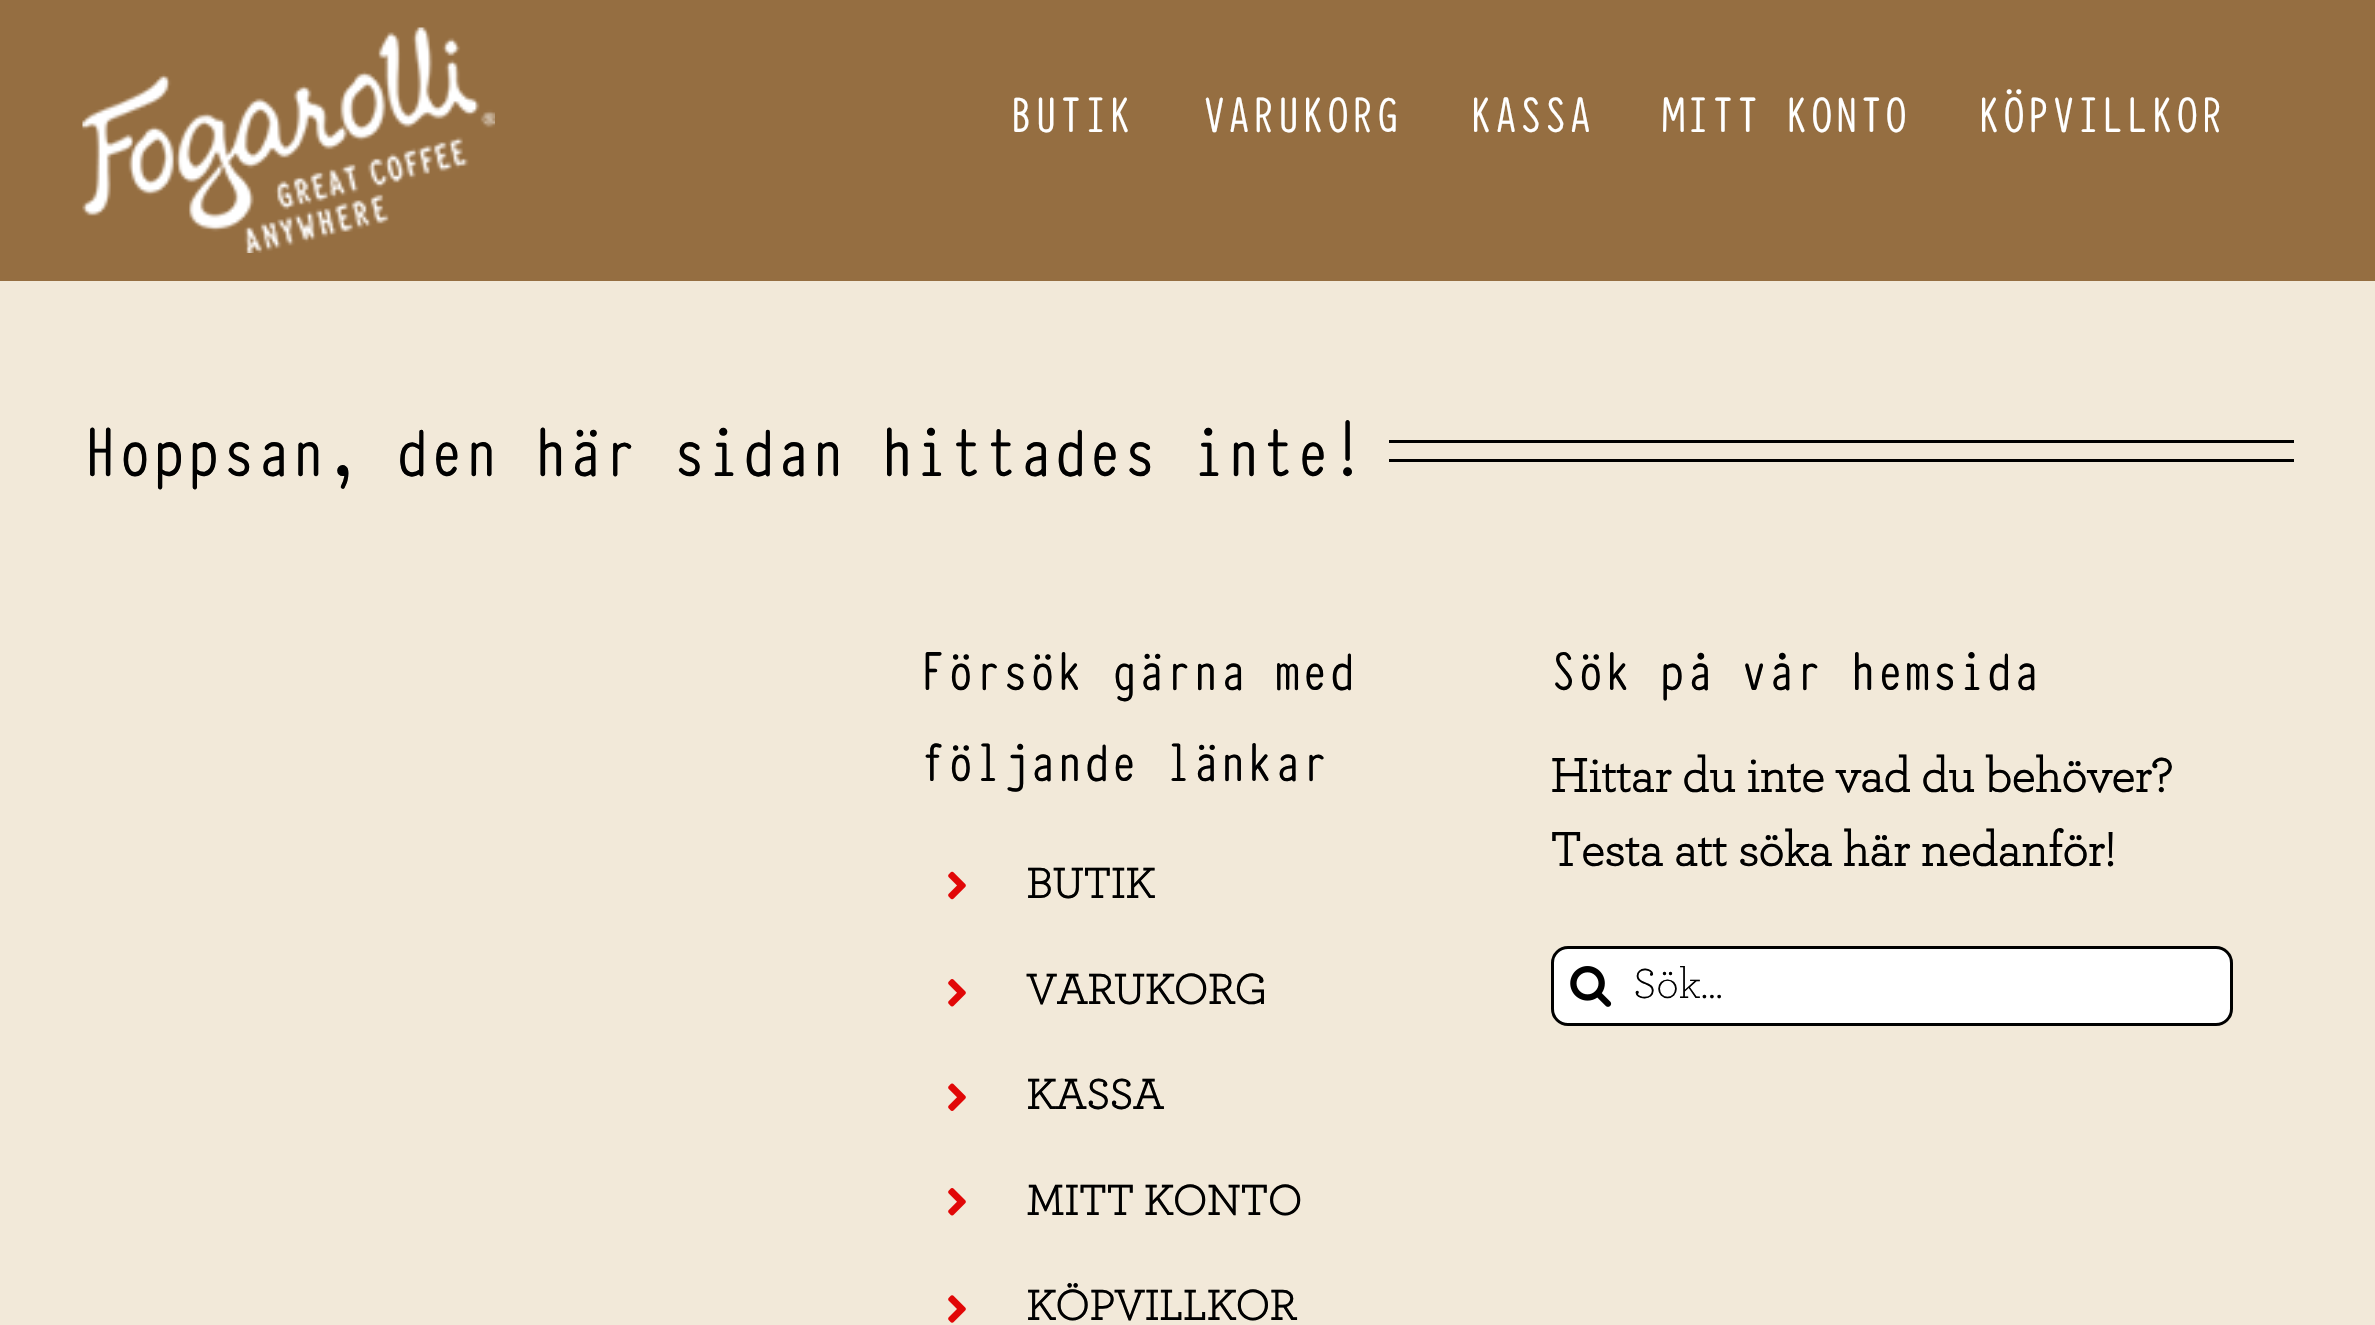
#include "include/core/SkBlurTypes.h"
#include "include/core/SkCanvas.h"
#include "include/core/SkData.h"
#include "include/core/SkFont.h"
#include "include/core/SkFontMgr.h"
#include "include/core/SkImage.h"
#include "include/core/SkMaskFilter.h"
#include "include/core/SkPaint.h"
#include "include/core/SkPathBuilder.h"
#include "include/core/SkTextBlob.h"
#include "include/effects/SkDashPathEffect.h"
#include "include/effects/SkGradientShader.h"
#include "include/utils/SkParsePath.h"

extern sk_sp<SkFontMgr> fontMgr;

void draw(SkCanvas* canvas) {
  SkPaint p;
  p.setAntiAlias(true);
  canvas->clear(SkColorSetRGB(242, 233, 217));
  p.setColor(SkColorSetRGB(149, 110, 65));
  canvas->drawRect(SkRect::MakeLTRB(0, 0, 2375, 281), p);
  canvas->drawImageRect(SkImages::DeferredFromEncodedData(SkData::MakeFromFileName("images/1.png")), SkRect::MakeLTRB(82, 27, 495, 253), SkSamplingOptions());
  p.setColor(SK_ColorBLACK);
  canvas->drawRect(SkRect::MakeLTRB(1389, 440, 2294, 443), p);
  canvas->drawRect(SkRect::MakeLTRB(1389, 459, 2294, 462), p);
  canvas->drawImageRect(SkImages::DeferredFromEncodedData(SkData::MakeFromFileName("images/2.png")), SkRect::MakeLTRB(948, 871, 966, 900), SkSamplingOptions());
  canvas->drawImageRect(SkImages::DeferredFromEncodedData(SkData::MakeFromFileName("images/3.png")), SkRect::MakeLTRB(948, 979, 966, 1007), SkSamplingOptions());
  canvas->drawImageRect(SkImages::DeferredFromEncodedData(SkData::MakeFromFileName("images/4.png")), SkRect::MakeLTRB(948, 1083, 966, 1111), SkSamplingOptions());
  canvas->drawImageRect(SkImages::DeferredFromEncodedData(SkData::MakeFromFileName("images/3.png")), SkRect::MakeLTRB(948, 1188, 966, 1216), SkSamplingOptions());
  canvas->drawImageRect(SkImages::DeferredFromEncodedData(SkData::MakeFromFileName("images/5.png")), SkRect::MakeLTRB(948, 1295, 966, 1323), SkSamplingOptions());
  p.setColor(SK_ColorWHITE);
  canvas->drawRoundRect(SkRect::MakeLTRB(1552.5f, 947.5f, 2231.5f, 1024.5f), 15.5f, 15.5f, p);
  p.setStyle(SkPaint::kStroke_Style);
  p.setStrokeWidth(3);
  p.setColor(SK_ColorBLACK);
  canvas->drawRoundRect(SkRect::MakeLTRB(1552.5f, 947.5f, 2231.5f, 1024.5f), 15.5f, 15.5f, p);
  canvas->drawImageRect(SkImages::DeferredFromEncodedData(SkData::MakeFromFileName("images/6.png")), SkRect::MakeLTRB(1570, 966, 1612, 1007), SkSamplingOptions());
  SkFont font1(fontMgr->matchFamilyStyle("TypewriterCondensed", SkFontStyle::Normal()), 55);
  font1.setSubpixel(true);
  p.setStyle(SkPaint::kFill_Style);
  p.setColor(SK_ColorWHITE);
  canvas->drawString("BUTIK", 1009, 132, font1, p);
  canvas->drawString("VARUKORG", 1202, 132, font1, p);
  canvas->drawString("KASSA", 1469, 132, font1, p);
  canvas->drawString("MITT KONTO", 1661, 132, font1, p);
  canvas->drawString("KÖPVILLKOR", 1977, 132, font1, p);
  SkFont font2(fontMgr->matchFamilyStyle("TypewriterCondensed", SkFontStyle::Normal()), 77);
  font2.setSubpixel(true);
  p.setColor(SK_ColorBLACK);
  canvas->drawString("Hoppsan, den här sidan hittades inte!", 83, 476, font2, p);
  SkFont font3(fontMgr->matchFamilyStyle("TypewriterCondensed", SkFontStyle::Normal()), 60.5f);
  font3.setSubpixel(true);
  canvas->drawString("Försök gärna med", 920, 690, font3, p);
  canvas->drawString("följande länkar", 920, 781, font3, p);
  SkFont font4(fontMgr->matchFamilyStyle("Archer", SkFontStyle::Bold()), 44);
  font4.setSubpixel(true);
  canvas->drawString("BUTIK", 1026, 898, font4, p);
  canvas->drawString("VARUKORG", 1026, 1004, font4, p);
  canvas->drawString("KASSA", 1026, 1109, font4, p);
  canvas->drawString("MITT KONTO", 1026, 1215, font4, p);
  canvas->drawString("KÖPVILLKOR", 1026, 1320, font4, p);
  canvas->drawString("Sök på vår hemsida", 1550, 690, font3, p);
  SkFont font5(fontMgr->matchFamilyStyle("Archer", SkFontStyle::Bold()), 49.5f);
  font5.setSubpixel(true);
  canvas->drawString("Hittar du inte vad du behöver?", 1550, 792, font5, p);
  canvas->drawString("Testa att söka här nedanför!", 1550, 866, font5, p);
  SkFont font6(fontMgr->matchFamilyStyle("Archer", SkFontStyle(300, SkFontStyle::kNormal_Width, SkFontStyle::kUpright_Slant)), 44);
  font6.setSubpixel(true);
  canvas->drawString("Sök...", 1633, 998, font6, p);
}
